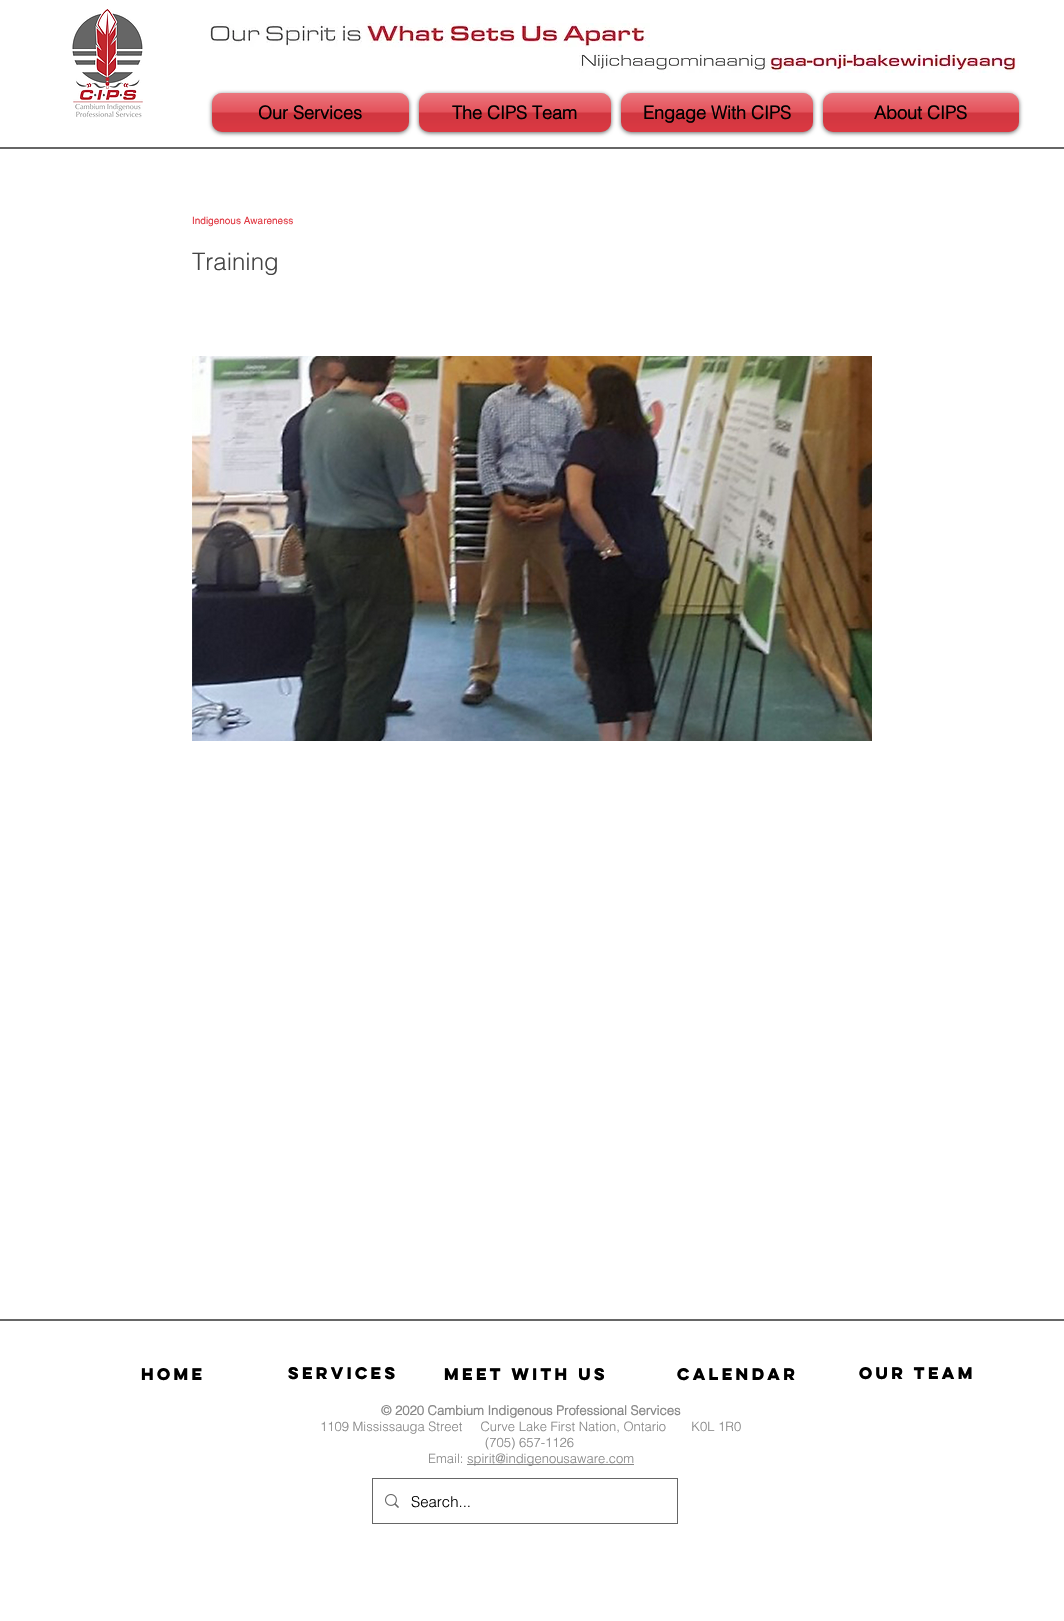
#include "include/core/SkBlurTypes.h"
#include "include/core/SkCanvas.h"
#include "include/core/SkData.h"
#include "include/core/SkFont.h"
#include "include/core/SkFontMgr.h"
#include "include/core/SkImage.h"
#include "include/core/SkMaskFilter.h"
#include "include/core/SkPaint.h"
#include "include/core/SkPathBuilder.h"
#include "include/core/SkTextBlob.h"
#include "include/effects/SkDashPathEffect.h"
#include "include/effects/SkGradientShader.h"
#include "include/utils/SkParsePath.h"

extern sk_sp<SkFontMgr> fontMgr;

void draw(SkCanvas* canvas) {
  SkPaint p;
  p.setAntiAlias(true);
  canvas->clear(SK_ColorWHITE);
  canvas->drawImageRect(SkImages::DeferredFromEncodedData(SkData::MakeFromFileName("images/1.png")), SkRect::MakeLTRB(72, 9, 143, 118), SkSamplingOptions());
  canvas->drawImageRect(SkImages::DeferredFromEncodedData(SkData::MakeFromFileName("images/2.png")), SkRect::MakeLTRB(210, 23, 650, 48), SkSamplingOptions());
  canvas->drawImageRect(SkImages::DeferredFromEncodedData(SkData::MakeFromFileName("images/3.png")), SkRect::MakeLTRB(579, 49, 1019, 73), SkSamplingOptions());
  p.setColor(SkColorSetARGB(153, 0, 0, 0));
  p.setMaskFilter(SkMaskFilter::MakeBlur(kNormal_SkBlurStyle, 2));
  canvas->drawRoundRect(SkRect::MakeLTRB(212, 94, 409, 133), 10, 10, p);
  p.setMaskFilter(nullptr);
  p.setColor(SkColorSetRGB(225, 58, 68));
  canvas->drawRoundRect(SkRect::MakeLTRB(212, 93, 409, 132), 10, 10, p);
  canvas->drawImageRect(SkImages::DeferredFromEncodedData(SkData::MakeFromFileName("images/4.png")), SkRect::MakeLTRB(212, 93, 409, 132), SkSamplingOptions());
  p.setColor(SkColorSetARGB(153, 0, 0, 0));
  p.setMaskFilter(SkMaskFilter::MakeBlur(kNormal_SkBlurStyle, 2));
  canvas->drawRoundRect(SkRect::MakeLTRB(419, 94, 611, 133), 10, 10, p);
  p.setMaskFilter(nullptr);
  p.setColor(SkColorSetRGB(225, 58, 68));
  canvas->drawRoundRect(SkRect::MakeLTRB(419, 93, 611, 132), 10, 10, p);
  canvas->drawImageRect(SkImages::DeferredFromEncodedData(SkData::MakeFromFileName("images/5.png")), SkRect::MakeLTRB(419, 93, 611, 132), SkSamplingOptions());
  p.setColor(SkColorSetARGB(153, 0, 0, 0));
  p.setMaskFilter(SkMaskFilter::MakeBlur(kNormal_SkBlurStyle, 2));
  canvas->drawRoundRect(SkRect::MakeLTRB(621, 94, 813, 133), 10, 10, p);
  p.setMaskFilter(nullptr);
  p.setColor(SkColorSetRGB(225, 58, 68));
  canvas->drawRoundRect(SkRect::MakeLTRB(621, 93, 813, 132), 10, 10, p);
  canvas->drawImageRect(SkImages::DeferredFromEncodedData(SkData::MakeFromFileName("images/6.png")), SkRect::MakeLTRB(621, 93, 813, 132), SkSamplingOptions());
  p.setColor(SkColorSetARGB(153, 0, 0, 0));
  p.setMaskFilter(SkMaskFilter::MakeBlur(kNormal_SkBlurStyle, 2));
  canvas->drawRoundRect(SkRect::MakeLTRB(823, 94, 1019, 133), 10, 10, p);
  p.setMaskFilter(nullptr);
  p.setColor(SkColorSetRGB(225, 58, 68));
  canvas->drawRoundRect(SkRect::MakeLTRB(823, 93, 1019, 132), 10, 10, p);
  canvas->drawImageRect(SkImages::DeferredFromEncodedData(SkData::MakeFromFileName("images/7.png")), SkRect::MakeLTRB(823, 93, 1019, 132), SkSamplingOptions());
  p.setColor(SkColorSetRGB(102, 102, 102));
  canvas->drawRect(SkRect::MakeLTRB(0, 147, 1064, 149), p);
  canvas->drawImageRect(SkImages::DeferredFromEncodedData(SkData::MakeFromFileName("images/8.png")), SkRect::MakeLTRB(192, 356, 872, 741), SkSamplingOptions());
  canvas->drawRect(SkRect::MakeLTRB(0, 1319, 1064, 1321), p);
  p.setColor(SkColorSetRGB(136, 136, 136));
  canvas->drawRect(SkRect::MakeLTRB(467, 1464, 634, 1465), p);
  p.setStyle(SkPaint::kStroke_Style);
  p.setStrokeWidth(1);
  p.setColor(SkColorSetRGB(102, 102, 102));
  canvas->drawRect(SkRect::MakeLTRB(372.5f, 1478.5f, 677.5f, 1523.5f), p);
  canvas->drawImageRect(SkImages::DeferredFromEncodedData(SkData::MakeFromFileName("images/9.png")), SkRect::MakeLTRB(385, 1494, 399, 1508), SkSamplingOptions());
  SkFont font1(fontMgr->matchFamilyStyle("helvetica", SkFontStyle::Bold()), 18);
  font1.setSubpixel(true);
  p.setStyle(SkPaint::kFill_Style);
  p.setColor(SK_ColorBLACK);
  canvas->drawString("Our Services", 258, 119, font1, p);
  canvas->drawString("The CIPS Team", 452, 119, font1, p);
  canvas->drawString("Engage With CIPS", 643, 119, font1, p);
  canvas->drawString("About CIPS", 874, 119, font1, p);
  SkFont font2(fontMgr->matchFamilyStyle("helvetica", SkFontStyle::Normal()), 10);
  font2.setSubpixel(true);
  p.setColor(SkColorSetRGB(225, 58, 68));
  canvas->drawString("Indigenous Awareness", 192, 224, font2, p);
  SkFont font3(fontMgr->matchFamilyStyle("helvetica", SkFontStyle(300, SkFontStyle::kNormal_Width, SkFontStyle::kUpright_Slant)), 24);
  font3.setSubpixel(true);
  p.setColor(SkColorSetRGB(68, 68, 68));
  canvas->drawString("Training", 192, 270, font3, p);
  SkFont font4(fontMgr->matchFamilyStyle("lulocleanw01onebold", SkFontStyle::Bold()), 15);
  font4.setSubpixel(true);
  p.setColor(SK_ColorBLACK);
  canvas->drawString("Home", 141, 1380, font4, p);
  canvas->drawString("Services", 288, 1379, font4, p);
  canvas->drawString("Meet With Us", 444, 1380, font4, p);
  canvas->drawString("Calendar", 677, 1380, font4, p);
  canvas->drawString("Our Team", 859, 1379, font4, p);
  SkFont font5(fontMgr->matchFamilyStyle("helvetica", SkFontStyle::Bold()), 13);
  font5.setSubpixel(true);
  p.setColor(SkColorSetRGB(136, 136, 136));
  canvas->drawString("© 2020 Cambium Indigenous Professional Services", 381, 1415, font5, p);
  SkFont font6(fontMgr->matchFamilyStyle("helvetica", SkFontStyle(300, SkFontStyle::kNormal_Width, SkFontStyle::kUpright_Slant)), 13);
  font6.setSubpixel(true);
  canvas->drawString("1109 Mississauga Street     Curve Lake First Nation, Ontario       K0L 1R0", 320, 1431, font6, p);
  canvas->drawString("(705) 657-1126", 485, 1447, font6, p);
  canvas->drawString("Email:", 428, 1463, font6, p);
  canvas->drawString("spirit@indigenousaware.com", 467, 1463, font6, p);
  SkFont font7(fontMgr->matchFamilyStyle("helvetica", SkFontStyle(300, SkFontStyle::kNormal_Width, SkFontStyle::kUpright_Slant)), 15);
  font7.setSubpixel(true);
  p.setColor(SK_ColorBLACK);
  canvas->drawString("Search...", 411, 1507, font7, p);
}
